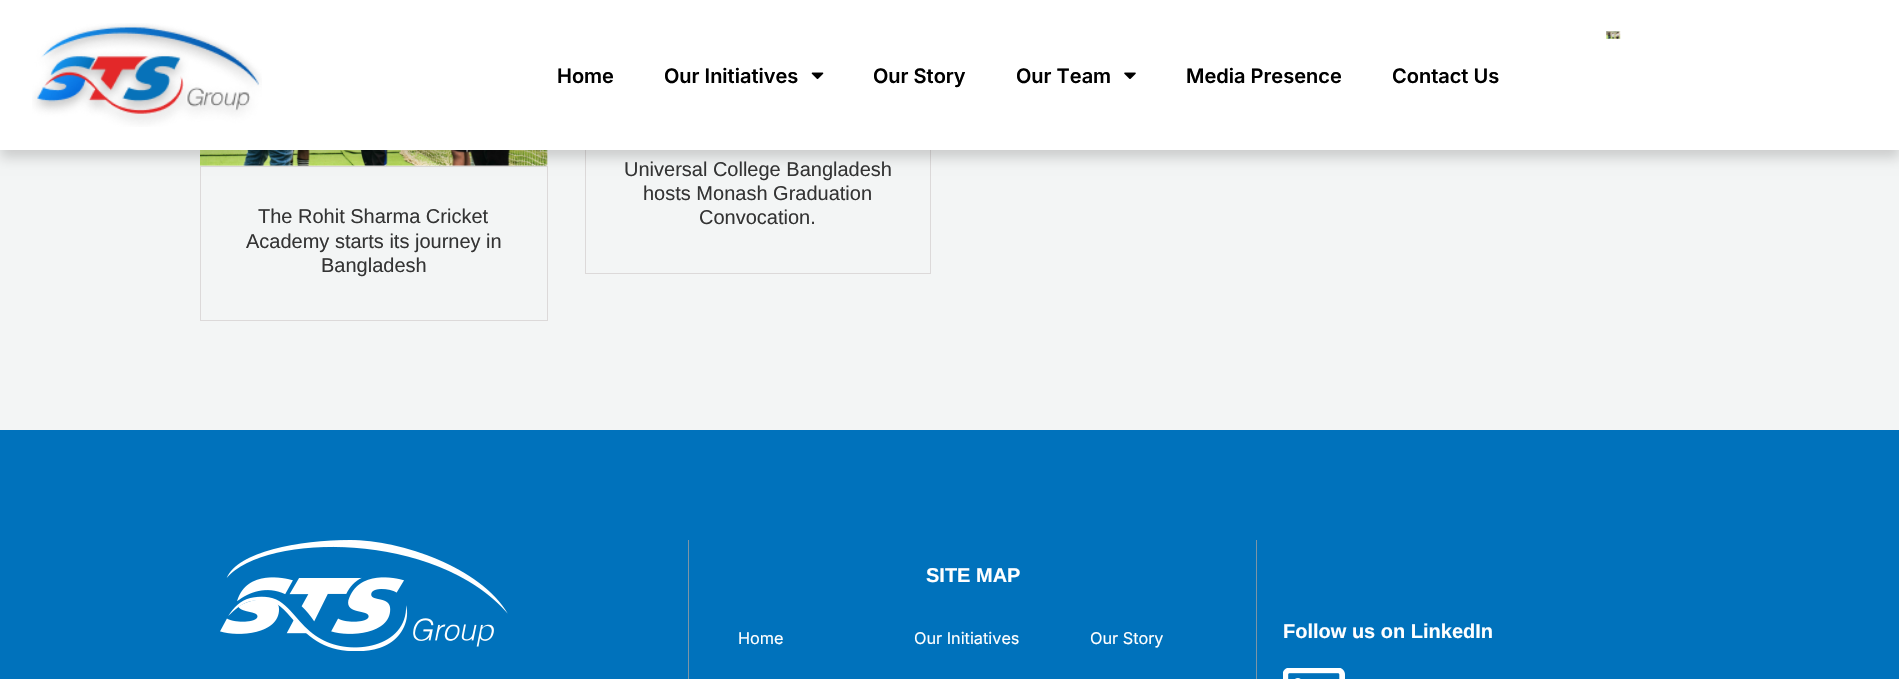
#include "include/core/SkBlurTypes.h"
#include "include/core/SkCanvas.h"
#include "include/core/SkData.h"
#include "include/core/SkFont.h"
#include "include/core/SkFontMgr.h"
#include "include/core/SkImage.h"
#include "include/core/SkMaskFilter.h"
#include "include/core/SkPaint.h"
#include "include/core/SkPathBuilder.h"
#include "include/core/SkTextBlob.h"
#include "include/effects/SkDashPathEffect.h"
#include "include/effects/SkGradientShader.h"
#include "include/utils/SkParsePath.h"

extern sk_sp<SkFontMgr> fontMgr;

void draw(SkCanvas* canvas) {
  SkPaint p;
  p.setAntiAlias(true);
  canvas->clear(SkColorSetRGB(243, 245, 245));
  p.setStyle(SkPaint::kStroke_Style);
  p.setStrokeWidth(1);
  p.setColor(SkColorSetRGB(220, 217, 217));
  canvas->drawRect(SkRect::MakeLTRB(585.5f, 119.5f, 930.5f, 273.5f), p);
  canvas->drawImageRect(SkImages::DeferredFromEncodedData(SkData::MakeFromFileName("images/5.png")), SkRect::MakeLTRB(200, 150, 548, 166), SkSamplingOptions());
  canvas->drawRect(SkRect::MakeLTRB(200.5f, 166.5f, 547.5f, 320.5f), p);
  p.setStyle(SkPaint::kFill_Style);
  p.setColor(SkColorSetARGB(41, 0, 0, 0));
  p.setMaskFilter(SkMaskFilter::MakeBlur(kNormal_SkBlurStyle, 6));
  canvas->drawRect(SkRect::MakeLTRB(0, 8, 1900, 158), p);
  p.setMaskFilter(nullptr);
  p.setColor(SK_ColorWHITE);
  canvas->drawRect(SkRect::MakeLTRB(0, 0, 1899, 150), p);
  canvas->drawImageRect(SkImages::DeferredFromEncodedData(SkData::MakeFromFileName("images/1.png")), SkRect::MakeLTRB(32, 23, 262, 127), SkSamplingOptions());
  canvas->drawImageRect(SkImages::DeferredFromEncodedData(SkData::MakeFromFileName("images/2.png")), SkRect::MakeLTRB(1606, 31, 1621, 39), SkSamplingOptions());
  canvas->drawImageRect(SkImages::DeferredFromEncodedData(SkData::MakeFromFileName("images/3.png")), SkRect::MakeLTRB(811, 72, 824, 80), SkSamplingOptions());
  canvas->drawImageRect(SkImages::DeferredFromEncodedData(SkData::MakeFromFileName("images/4.png")), SkRect::MakeLTRB(1124, 72, 1136, 79), SkSamplingOptions());
  p.setColor(SkColorSetRGB(0, 114, 188));
  canvas->drawRect(SkRect::MakeLTRB(0, 430, 1899, 679), p);
  p.setColor(SkColorSetRGB(124, 149, 166));
  canvas->drawRect(SkRect::MakeLTRB(688, 540, 689, 679), p);
  canvas->drawImageRect(SkImages::DeferredFromEncodedData(SkData::MakeFromFileName("images/6.png")), SkRect::MakeLTRB(220, 540, 508, 651), SkSamplingOptions());
  canvas->drawRect(SkRect::MakeLTRB(1256, 540, 1257, 679), p);
  canvas->drawImageRect(SkImages::DeferredFromEncodedData(SkData::MakeFromFileName("images/7.png")), SkRect::MakeLTRB(1283, 668, 1345, 679), SkSamplingOptions());
  SkFont font1(fontMgr->matchFamilyStyle("Inter", SkFontStyle(600, SkFontStyle::kNormal_Width, SkFontStyle::kUpright_Slant)), 20);
  font1.setSubpixel(true);
  p.setColor(SK_ColorBLACK);
  canvas->drawString("Home", 557, 83, font1, p);
  canvas->drawString("Our Initiatives", 664, 83, font1, p);
  canvas->drawString("Our Story", 873, 83, font1, p);
  canvas->drawString("Our Team", 1016, 83, font1, p);
  canvas->drawString("Media Presence", 1186, 83, font1, p);
  canvas->drawString("Contact Us", 1392, 83, font1, p);
  SkFont font2(fontMgr->matchFamilyStyle("Liberation Sans", SkFontStyle::Normal()), 20);
  font2.setSubpixel(true);
  p.setColor(SkColorSetRGB(52, 52, 52));
  canvas->drawString("Universal College Bangladesh", 624, 176, font2, p);
  canvas->drawString("hosts Monash Graduation", 643, 200, font2, p);
  canvas->drawString("Convocation.", 699, 224, font2, p);
  canvas->drawString("The Rohit Sharma Cricket", 258, 223, font2, p);
  canvas->drawString("Academy starts its journey in", 246, 248, font2, p);
  canvas->drawString("Bangladesh", 321, 272, font2, p);
  SkFont font3(fontMgr->matchFamilyStyle("Liberation Sans", SkFontStyle::Bold()), 20);
  font3.setSubpixel(true);
  p.setColor(SK_ColorWHITE);
  canvas->drawString("SITE MAP", 926, 582, font3, p);
  SkFont font4(fontMgr->matchFamilyStyle("Inter", SkFontStyle::Normal()), 16.25f);
  font4.setSubpixel(true);
  canvas->drawString("Home", 738, 644, font4, p);
  canvas->drawString("Our Initiatives", 914, 644, font4, p);
  canvas->drawString("Our Story", 1090, 644, font4, p);
  canvas->drawString("Follow us on LinkedIn", 1283, 638, font3, p);
}
